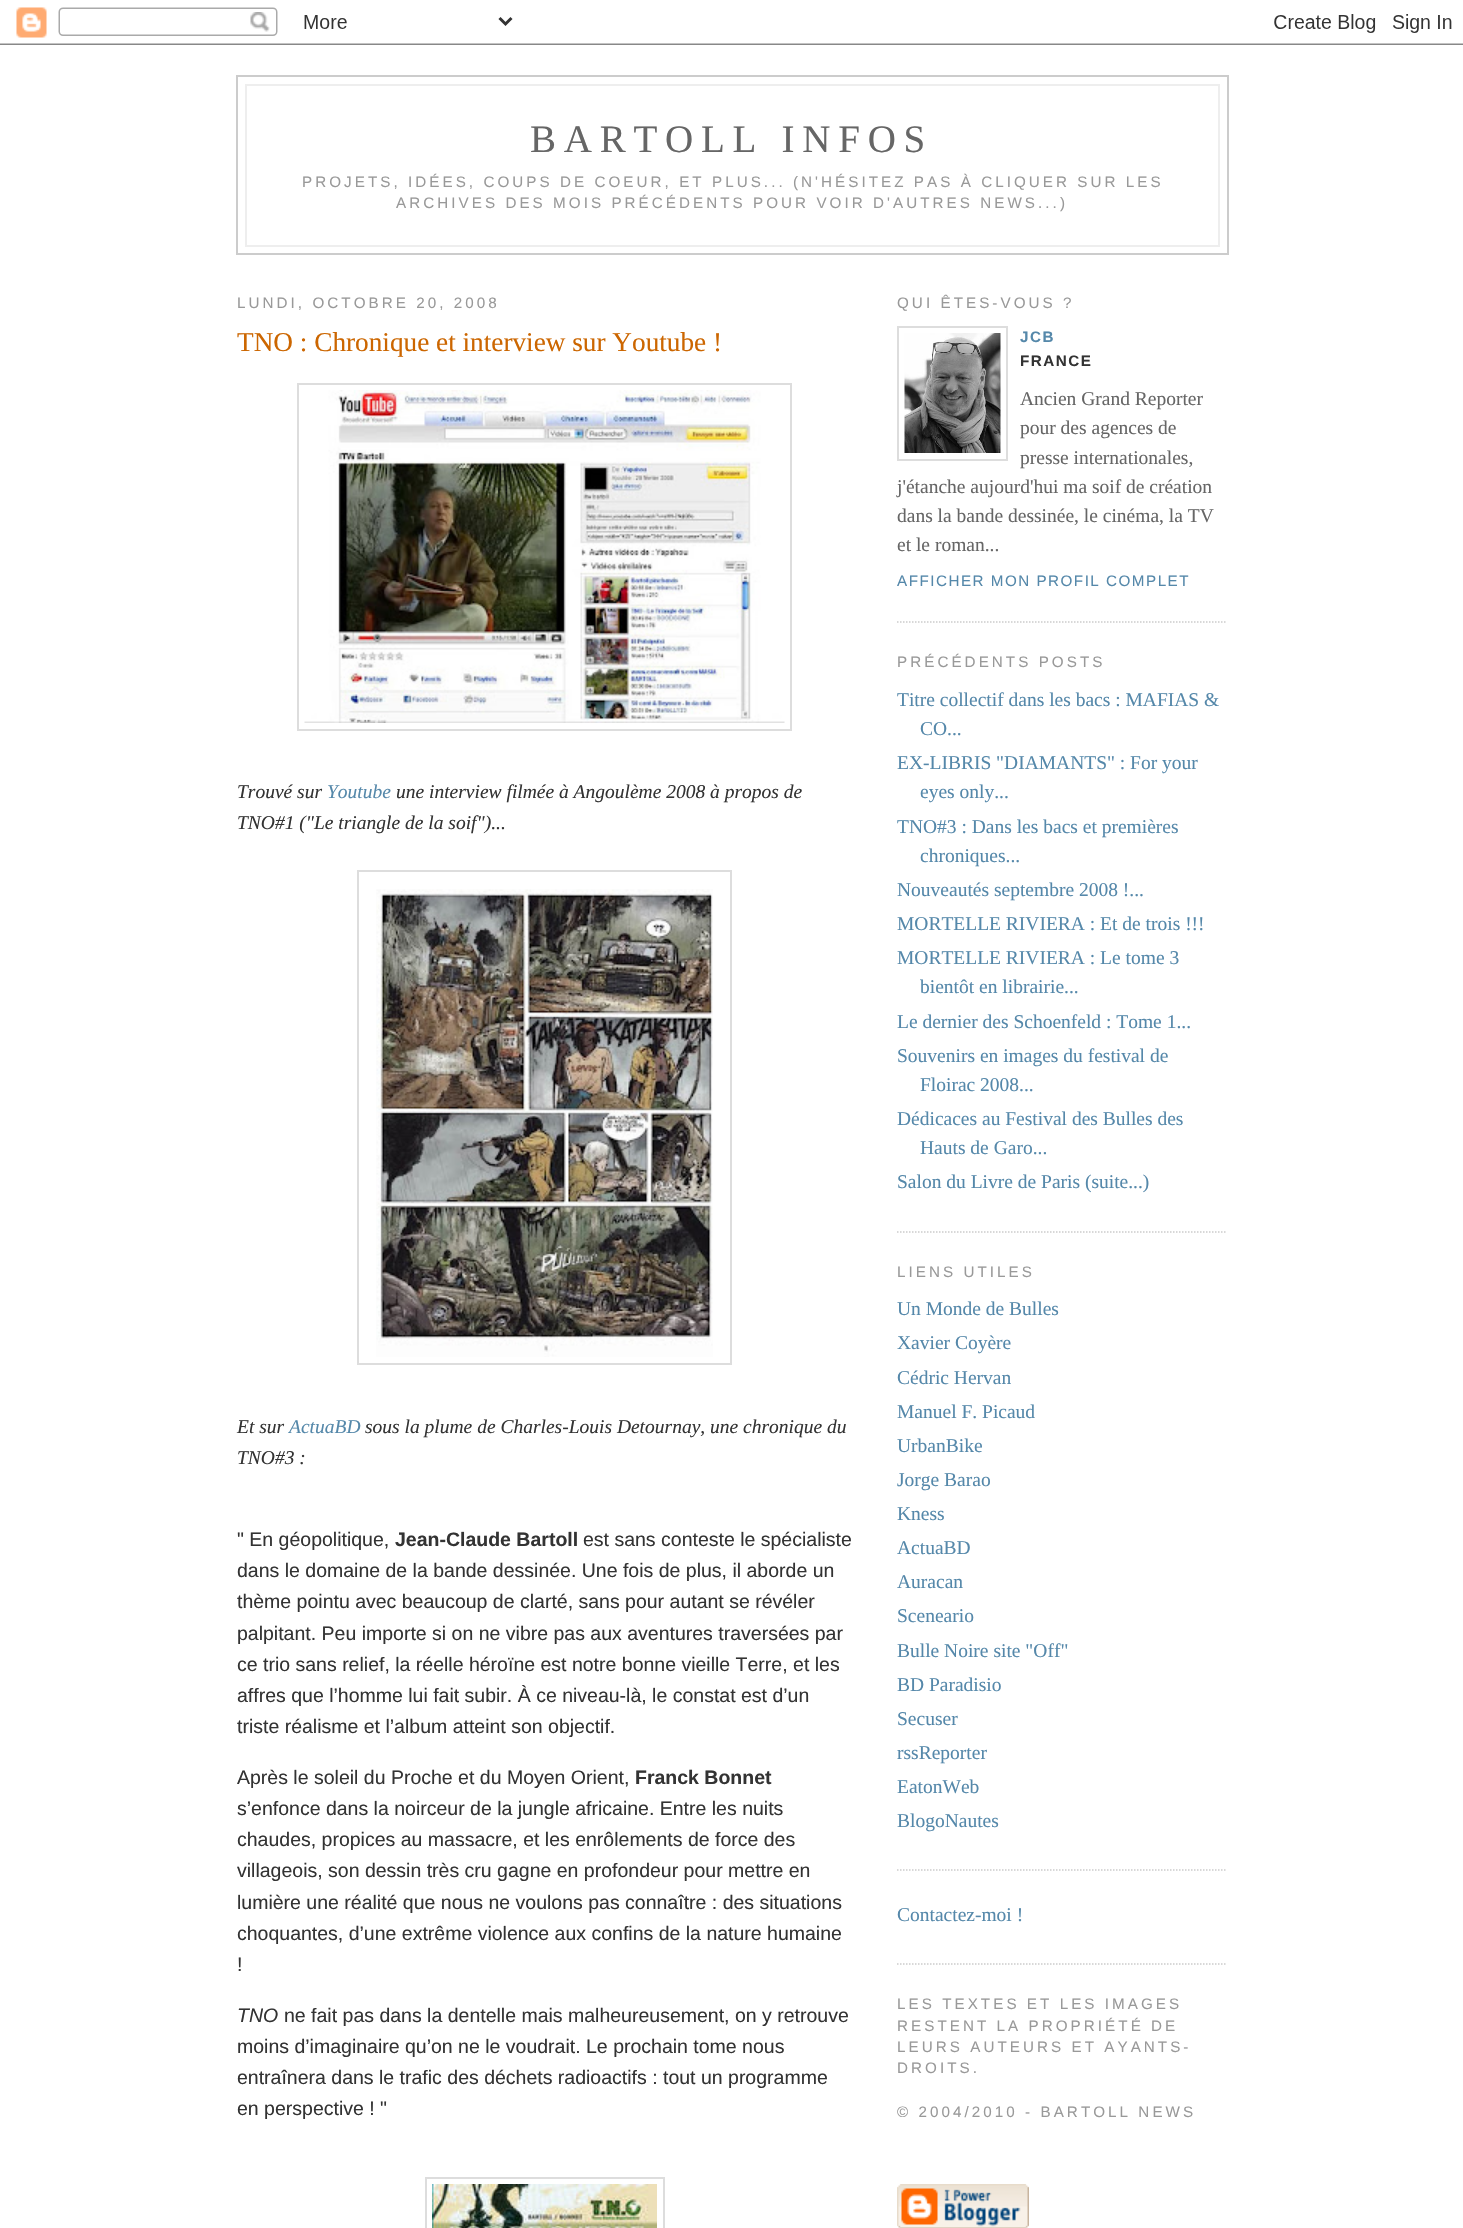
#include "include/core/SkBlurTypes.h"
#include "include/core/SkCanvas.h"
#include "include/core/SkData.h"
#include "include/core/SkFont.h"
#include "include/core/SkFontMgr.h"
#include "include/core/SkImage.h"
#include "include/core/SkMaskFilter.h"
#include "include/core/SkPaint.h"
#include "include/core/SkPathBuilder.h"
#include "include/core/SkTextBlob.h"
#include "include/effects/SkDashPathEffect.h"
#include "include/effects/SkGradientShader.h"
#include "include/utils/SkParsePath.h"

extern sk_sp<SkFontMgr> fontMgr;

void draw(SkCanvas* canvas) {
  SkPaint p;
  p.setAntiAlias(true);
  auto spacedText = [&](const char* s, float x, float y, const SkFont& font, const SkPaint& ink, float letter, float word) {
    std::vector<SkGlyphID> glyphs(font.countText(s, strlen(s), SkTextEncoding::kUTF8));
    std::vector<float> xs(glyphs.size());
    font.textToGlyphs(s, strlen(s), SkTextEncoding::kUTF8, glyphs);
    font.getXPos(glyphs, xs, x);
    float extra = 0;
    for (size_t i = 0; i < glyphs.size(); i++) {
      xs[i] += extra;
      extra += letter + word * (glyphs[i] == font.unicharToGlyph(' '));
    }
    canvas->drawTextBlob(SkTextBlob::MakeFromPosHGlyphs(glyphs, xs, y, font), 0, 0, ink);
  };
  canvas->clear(SK_ColorWHITE);
  canvas->drawImageRect(SkImages::DeferredFromEncodedData(SkData::MakeFromFileName("images/1.png")), SkRect::MakeLTRB(0, 7, 1463, 45), SkSamplingOptions());
  p.setStyle(SkPaint::kStroke_Style);
  p.setStrokeWidth(2);
  p.setColor(SkColorSetRGB(204, 204, 204));
  canvas->drawRect(SkRect::MakeLTRB(237, 76, 1228, 254), p);
  p.setStyle(SkPaint::kFill_Style);
  p.setColor(SkColorSetRGB(238, 238, 238));
  canvas->drawRect(SkRect::MakeLTRB(245, 84, 1220, 86), p);
  canvas->drawRect(SkRect::MakeLTRB(1218, 84, 1220, 246), p);
  canvas->drawRect(SkRect::MakeLTRB(245, 84, 247, 173), p);
  canvas->drawRect(SkRect::MakeLTRB(245, 245, 1220, 247), p);
  canvas->drawRect(SkRect::MakeLTRB(245, 173, 247, 246), p);
  p.setStyle(SkPaint::kStroke_Style);
  p.setColor(SkColorSetRGB(221, 221, 221));
  canvas->drawRect(SkRect::MakeLTRB(298, 384, 791, 730), p);
  canvas->drawImageRect(SkImages::DeferredFromEncodedData(SkData::MakeFromFileName("images/2.png")), SkRect::MakeLTRB(304, 390, 785, 723), SkSamplingOptions());
  canvas->drawRect(SkRect::MakeLTRB(358, 871, 731, 1364), p);
  canvas->drawImageRect(SkImages::DeferredFromEncodedData(SkData::MakeFromFileName("images/3.png")), SkRect::MakeLTRB(376, 889, 713, 1357), SkSamplingOptions());
  canvas->drawRect(SkRect::MakeLTRB(426, 2178, 664, 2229), p);
  canvas->drawImageRect(SkImages::DeferredFromEncodedData(SkData::MakeFromFileName("images/4.png")), SkRect::MakeLTRB(432, 2184, 657, 2228), SkSamplingOptions());
  p.setStrokeWidth(1.5f);
  p.setColor(SkColorSetRGB(204, 204, 204));
  p.setPathEffect(SkDashPathEffect::Make({{1.5f, 1.5f}}, 0));
  canvas->drawPath(SkPathBuilder().moveTo(897, 622).lineTo(1227, 622).detach(), p);
  p.setPathEffect(nullptr);
  p.setStrokeWidth(2);
  p.setColor(SkColorSetRGB(221, 221, 221));
  canvas->drawRect(SkRect::MakeLTRB(898, 327, 1007, 460), p);
  canvas->drawImageRect(SkImages::DeferredFromEncodedData(SkData::MakeFromFileName("images/5.png")), SkRect::MakeLTRB(904, 333, 1001, 453), SkSamplingOptions());
  p.setStrokeWidth(1.5f);
  p.setColor(SkColorSetRGB(204, 204, 204));
  p.setPathEffect(SkDashPathEffect::Make({{1.5f, 1.5f}}, 0));
  canvas->drawPath(SkPathBuilder().moveTo(897, 1232).lineTo(1227, 1232).detach(), p);
  p.setPathEffect(nullptr);
  p.setPathEffect(SkDashPathEffect::Make({{1.5f, 1.5f}}, 0));
  canvas->drawPath(SkPathBuilder().moveTo(897, 1870).lineTo(1227, 1870).detach(), p);
  p.setPathEffect(nullptr);
  p.setPathEffect(SkDashPathEffect::Make({{1.5f, 1.5f}}, 0));
  canvas->drawPath(SkPathBuilder().moveTo(897, 1964).lineTo(1227, 1964).detach(), p);
  p.setPathEffect(nullptr);
  canvas->drawImageRect(SkImages::DeferredFromEncodedData(SkData::MakeFromFileName("images/6.png")), SkRect::MakeLTRB(897, 2184, 1029, 2228), SkSamplingOptions());
  SkFont font1(fontMgr->matchFamilyStyle("Liberation Serif", SkFontStyle::Normal()), 39);
  font1.setSubpixel(true);
  p.setStyle(SkPaint::kFill_Style);
  p.setColor(SkColorSetRGB(102, 102, 102));
  spacedText("BARTOLL INFOS", 530, 152, font1, p, 7.75f, 0);
  SkFont font2(fontMgr->matchFamilyStyle("Liberation Sans", SkFontStyle::Normal()), 15.2f);
  font2.setSubpixel(true);
  p.setColor(SkColorSetRGB(153, 153, 153));
  spacedText("PROJETS, IDÉES, COUPS DE COEUR, ET PLUS... (N'HÉSITEZ PAS À CLIQUER SUR LES", 302, 187, font2, p, 3.05f, 0);
  spacedText("ARCHIVES DES MOIS PRÉCÉDENTS POUR VOIR D'AUTRES NEWS...)", 396, 208, font2, p, 3.05f, 0);
  spacedText("LUNDI, OCTOBRE 20, 2008", 237, 308, font2, p, 3.05f, 0);
  SkFont font3(fontMgr->matchFamilyStyle("Liberation Serif", SkFontStyle::Normal()), 27.25f);
  font3.setSubpixel(true);
  p.setColor(SkColorSetRGB(204, 102, 0));
  canvas->drawString("TNO : Chronique et interview sur Youtube !", 237, 351, font3, p);
  SkFont font4(fontMgr->matchFamilyStyle("Liberation Serif", SkFontStyle::Italic()), 19.5f);
  font4.setSubpixel(true);
  p.setColor(SkColorSetRGB(51, 51, 51));
  canvas->drawString("Trouvé sur", 237, 798, font4, p);
  p.setColor(SkColorSetRGB(85, 136, 170));
  canvas->drawString("Youtube", 327, 798, font4, p);
  p.setColor(SkColorSetRGB(51, 51, 51));
  canvas->drawString("une interview filmée à Angoulème 2008 à propos de", 396, 798, font4, p);
  canvas->drawString("TNO#1 (\"Le triangle de la soif\")...", 237, 829, font4, p);
  canvas->drawString("Et sur", 237, 1433, font4, p);
  p.setColor(SkColorSetRGB(85, 136, 170));
  canvas->drawString("ActuaBD", 289, 1433, font4, p);
  p.setColor(SkColorSetRGB(51, 51, 51));
  canvas->drawString("sous la plume de Charles-Louis Detournay, une chronique du", 365, 1433, font4, p);
  canvas->drawString("TNO#3 :", 237, 1464, font4, p);
  SkFont font5(fontMgr->matchFamilyStyle("Liberation Sans", SkFontStyle::Normal()), 19.5f);
  font5.setSubpixel(true);
  canvas->drawString("\" En géopolitique,", 237, 1546, font5, p);
  SkFont font6(fontMgr->matchFamilyStyle("Liberation Sans", SkFontStyle::Bold()), 19.5f);
  font6.setSubpixel(true);
  canvas->drawString("Jean-Claude Bartoll", 395, 1546, font6, p);
  canvas->drawString("est sans conteste le spécialiste", 583, 1546, font5, p);
  canvas->drawString("dans le domaine de la bande dessinée. Une fois de plus, il aborde un", 237, 1577, font5, p);
  canvas->drawString("thème pointu avec beaucoup de clarté, sans pour autant se révéler", 237, 1608, font5, p);
  canvas->drawString("palpitant. Peu importe si on ne vibre pas aux aventures traversées par", 237, 1640, font5, p);
  canvas->drawString("ce trio sans relief, la réelle héroïne est notre bonne vieille Terre, et les", 237, 1671, font5, p);
  canvas->drawString("affres que l’homme lui fait subir. À ce niveau-là, le constat est d’un", 237, 1702, font5, p);
  canvas->drawString("triste réalisme et l’album atteint son objectif.", 237, 1733, font5, p);
  canvas->drawString("Après le soleil du Proche et du Moyen Orient,", 237, 1784, font5, p);
  canvas->drawString("Franck Bonnet", 635, 1784, font6, p);
  canvas->drawString("s’enfonce dans la noirceur de la jungle africaine. Entre les nuits", 237, 1815, font5, p);
  canvas->drawString("chaudes, propices au massacre, et les enrôlements de force des", 237, 1846, font5, p);
  canvas->drawString("villageois, son dessin très cru gagne en profondeur pour mettre en", 237, 1877, font5, p);
  canvas->drawString("lumière une réalité que nous ne voulons pas connaître : des situations", 237, 1909, font5, p);
  canvas->drawString("choquantes, d’une extrême violence aux confins de la nature humaine", 237, 1940, font5, p);
  canvas->drawString("!", 237, 1971, font5, p);
  SkFont font7(fontMgr->matchFamilyStyle("Liberation Sans", SkFontStyle::Italic()), 19.5f);
  font7.setSubpixel(true);
  canvas->drawString("TNO", 237, 2022, font7, p);
  canvas->drawString("ne fait pas dans la dentelle mais malheureusement, on y retrouve", 284, 2022, font5, p);
  canvas->drawString("moins d’imaginaire qu’on ne le voudrait. Le prochain tome nous", 237, 2053, font5, p);
  canvas->drawString("entraînera dans le trafic des déchets radioactifs : tout un programme", 237, 2084, font5, p);
  canvas->drawString("en perspective ! \"", 237, 2115, font5, p);
  p.setColor(SkColorSetRGB(153, 153, 153));
  spacedText("QUI ÊTES-VOUS ?", 897, 308, font2, p, 3.05f, 0);
  SkFont font8(fontMgr->matchFamilyStyle("Liberation Sans", SkFontStyle::Bold()), 15.2f);
  font8.setSubpixel(true);
  p.setColor(SkColorSetRGB(85, 136, 170));
  spacedText("JCB", 1020, 342, font8, p, 1.5f, 0);
  p.setColor(SkColorSetRGB(51, 51, 51));
  spacedText("FRANCE", 1020, 366, font8, p, 1.5f, 0);
  SkFont font9(fontMgr->matchFamilyStyle("Liberation Serif", SkFontStyle::Normal()), 19.5f);
  font9.setSubpixel(true);
  p.setColor(SkColorSetRGB(102, 102, 102));
  canvas->drawString("Ancien Grand Reporter", 1020, 405, font9, p);
  canvas->drawString("pour des agences de", 1020, 434, font9, p);
  canvas->drawString("presse internationales,", 1020, 464, font9, p);
  canvas->drawString("j'étanche aujourd'hui ma soif de création", 897, 493, font9, p);
  canvas->drawString("dans la bande dessinée, le cinéma, la TV", 897, 522, font9, p);
  canvas->drawString("et le roman...", 897, 551, font9, p);
  p.setColor(SkColorSetRGB(85, 136, 170));
  spacedText("AFFICHER MON PROFIL COMPLET", 897, 586, font2, p, 1.5f, 0);
  p.setColor(SkColorSetRGB(153, 153, 153));
  spacedText("PRÉCÉDENTS POSTS", 897, 667, font2, p, 3.05f, 0);
  p.setColor(SkColorSetRGB(85, 136, 170));
  canvas->drawString("Titre collectif dans les bacs : MAFIAS &", 897, 706, font9, p);
  canvas->drawString("CO...", 920, 735, font9, p);
  canvas->drawString("EX-LIBRIS \"DIAMANTS\" : For your", 897, 769, font9, p);
  canvas->drawString("eyes only...", 920, 798, font9, p);
  canvas->drawString("TNO#3 : Dans les bacs et premières", 897, 833, font9, p);
  canvas->drawString("chroniques...", 920, 862, font9, p);
  canvas->drawString("Nouveautés septembre 2008 !...", 897, 896, font9, p);
  canvas->drawString("MORTELLE RIVIERA : Et de trois !!!", 897, 930, font9, p);
  canvas->drawString("MORTELLE RIVIERA : Le tome 3", 897, 964, font9, p);
  canvas->drawString("bientôt en librairie...", 920, 993, font9, p);
  canvas->drawString("Le dernier des Schoenfeld : Tome 1...", 897, 1028, font9, p);
  canvas->drawString("Souvenirs en images du festival de", 897, 1062, font9, p);
  canvas->drawString("Floirac 2008...", 920, 1091, font9, p);
  canvas->drawString("Dédicaces au Festival des Bulles des", 897, 1125, font9, p);
  canvas->drawString("Hauts de Garo...", 920, 1154, font9, p);
  canvas->drawString("Salon du Livre de Paris (suite...)", 897, 1188, font9, p);
  p.setColor(SkColorSetRGB(153, 153, 153));
  spacedText("LIENS UTILES", 897, 1277, font2, p, 3.05f, 0);
  p.setColor(SkColorSetRGB(85, 136, 170));
  canvas->drawString("Un Monde de Bulles", 897, 1315, font9, p);
  canvas->drawString("Xavier Coyère", 897, 1349, font9, p);
  canvas->drawString("Cédric Hervan", 897, 1384, font9, p);
  canvas->drawString("Manuel F. Picaud", 897, 1418, font9, p);
  canvas->drawString("UrbanBike", 897, 1452, font9, p);
  canvas->drawString("Jorge Barao", 897, 1486, font9, p);
  canvas->drawString("Kness", 897, 1520, font9, p);
  canvas->drawString("ActuaBD", 897, 1554, font9, p);
  canvas->drawString("Auracan", 897, 1588, font9, p);
  canvas->drawString("Sceneario", 897, 1622, font9, p);
  canvas->drawString("Bulle Noire site \"Off\"", 897, 1657, font9, p);
  canvas->drawString("BD Paradisio", 897, 1691, font9, p);
  canvas->drawString("Secuser", 897, 1725, font9, p);
  canvas->drawString("rssReporter", 897, 1759, font9, p);
  canvas->drawString("EatonWeb", 897, 1793, font9, p);
  canvas->drawString("BlogoNautes", 897, 1827, font9, p);
  canvas->drawString("Contactez-moi !", 897, 1921, font9, p);
  p.setColor(SkColorSetRGB(153, 153, 153));
  spacedText("LES TEXTES ET LES IMAGES", 897, 2009, font2, p, 3.05f, 0);
  spacedText("RESTENT LA PROPRIÉTÉ DE", 897, 2031, font2, p, 3.05f, 0);
  spacedText("LEURS AUTEURS ET AYANTS-", 897, 2052, font2, p, 3.05f, 0);
  spacedText("DROITS.", 897, 2073, font2, p, 3.05f, 0);
  spacedText("© 2004/2010 - BARTOLL NEWS", 897, 2117, font2, p, 3.05f, 0);
}
